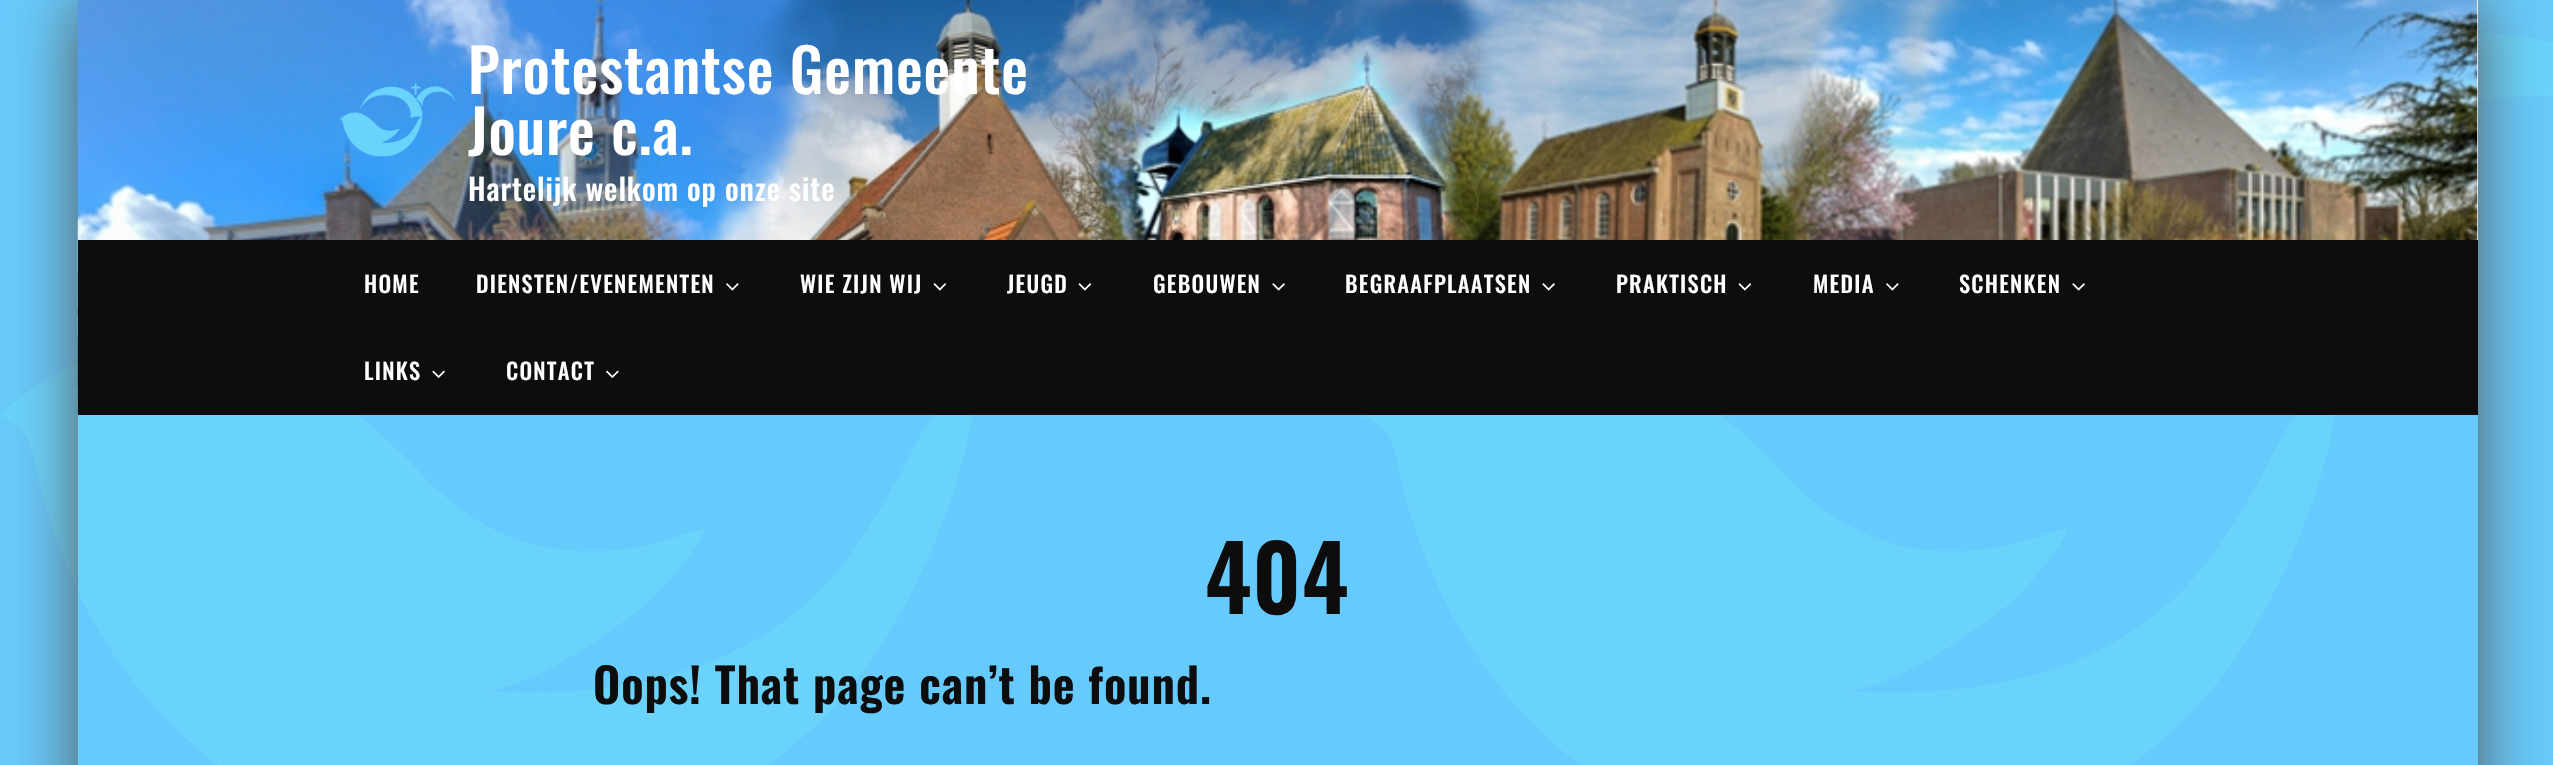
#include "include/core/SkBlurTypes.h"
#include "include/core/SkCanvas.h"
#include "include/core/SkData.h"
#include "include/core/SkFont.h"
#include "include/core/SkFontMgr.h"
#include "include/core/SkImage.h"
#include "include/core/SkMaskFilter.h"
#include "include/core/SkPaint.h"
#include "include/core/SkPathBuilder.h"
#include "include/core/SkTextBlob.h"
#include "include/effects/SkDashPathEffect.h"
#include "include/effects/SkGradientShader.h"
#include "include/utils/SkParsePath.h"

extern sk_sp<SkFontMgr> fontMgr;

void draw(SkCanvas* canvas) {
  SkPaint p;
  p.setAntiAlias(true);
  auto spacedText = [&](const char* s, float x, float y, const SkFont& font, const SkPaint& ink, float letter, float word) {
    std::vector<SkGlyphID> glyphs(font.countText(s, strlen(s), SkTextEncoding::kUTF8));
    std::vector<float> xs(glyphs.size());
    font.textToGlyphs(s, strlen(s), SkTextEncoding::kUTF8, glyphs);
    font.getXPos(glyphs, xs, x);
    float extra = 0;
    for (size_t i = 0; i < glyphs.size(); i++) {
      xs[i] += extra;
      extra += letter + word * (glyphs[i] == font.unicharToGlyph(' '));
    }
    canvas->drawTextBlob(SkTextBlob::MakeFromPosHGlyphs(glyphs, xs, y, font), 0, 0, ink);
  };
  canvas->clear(SkColorSetRGB(103, 202, 252));
  canvas->drawImageRect(SkImages::DeferredFromEncodedData(SkData::MakeFromFileName("images/1.png")), SkRect::MakeLTRB(0, 33, 2553, 765), SkSamplingOptions());
  canvas->save();
  canvas->clipPath(SkPathBuilder(SkPathFillType::kEvenOdd).moveTo(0, 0).lineTo(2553, 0).lineTo(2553, 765).lineTo(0, 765).close().moveTo(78, 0).lineTo(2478, 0).lineTo(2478, 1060).lineTo(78, 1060).close().detach(), true);
  p.setColor(SkColorSetRGB(85, 85, 85));
  p.setMaskFilter(SkMaskFilter::MakeBlur(kNormal_SkBlurStyle, 31));
  canvas->drawRect(SkRect::MakeLTRB(78, 0, 2478, 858), p);
  p.setMaskFilter(nullptr);
  canvas->restore();
  p.setColor(SK_ColorWHITE);
  canvas->drawRect(SkRect::MakeLTRB(2477, 0, 2478, 240), p);
  canvas->drawImageRect(SkImages::DeferredFromEncodedData(SkData::MakeFromFileName("images/2.png")), SkRect::MakeLTRB(77, 0, 2478, 415), SkSamplingOptions());
  canvas->drawImageRect(SkImages::DeferredFromEncodedData(SkData::MakeFromFileName("images/3.png")), SkRect::MakeLTRB(340, 83, 455, 157), SkSamplingOptions());
  p.setColor(SkColorSetRGB(13, 13, 13));
  canvas->drawRect(SkRect::MakeLTRB(78, 240, 2478, 415), p);
  canvas->drawImageRect(SkImages::DeferredFromEncodedData(SkData::MakeFromFileName("images/4.png")), SkRect::MakeLTRB(726, 283, 739, 291), SkSamplingOptions());
  canvas->drawImageRect(SkImages::DeferredFromEncodedData(SkData::MakeFromFileName("images/5.png")), SkRect::MakeLTRB(933, 283, 947, 291), SkSamplingOptions());
  canvas->drawImageRect(SkImages::DeferredFromEncodedData(SkData::MakeFromFileName("images/5.png")), SkRect::MakeLTRB(1078, 283, 1092, 291), SkSamplingOptions());
  canvas->drawImageRect(SkImages::DeferredFromEncodedData(SkData::MakeFromFileName("images/6.png")), SkRect::MakeLTRB(1272, 283, 1285, 291), SkSamplingOptions());
  canvas->drawImageRect(SkImages::DeferredFromEncodedData(SkData::MakeFromFileName("images/6.png")), SkRect::MakeLTRB(1542, 283, 1555, 291), SkSamplingOptions());
  canvas->drawImageRect(SkImages::DeferredFromEncodedData(SkData::MakeFromFileName("images/5.png")), SkRect::MakeLTRB(1738, 283, 1752, 291), SkSamplingOptions());
  canvas->drawImageRect(SkImages::DeferredFromEncodedData(SkData::MakeFromFileName("images/4.png")), SkRect::MakeLTRB(1886, 283, 1899, 291), SkSamplingOptions());
  canvas->drawImageRect(SkImages::DeferredFromEncodedData(SkData::MakeFromFileName("images/6.png")), SkRect::MakeLTRB(2072, 283, 2085, 291), SkSamplingOptions());
  canvas->drawImageRect(SkImages::DeferredFromEncodedData(SkData::MakeFromFileName("images/7.png")), SkRect::MakeLTRB(432, 370, 445, 378), SkSamplingOptions());
  canvas->drawImageRect(SkImages::DeferredFromEncodedData(SkData::MakeFromFileName("images/8.png")), SkRect::MakeLTRB(606, 370, 619, 378), SkSamplingOptions());
  SkFont font1(fontMgr->matchFamilyStyle("Oswald", SkFontStyle(500, SkFontStyle::kNormal_Width, SkFontStyle::kUpright_Slant)), 60);
  font1.setSubpixel(true);
  p.setColor(SK_ColorWHITE);
  spacedText("Protestantse Gemeente", 468, 94, font1, p, 0.9f, 0);
  spacedText("Joure c.a.", 468, 155, font1, p, 0.9f, 0);
  SkFont font2(fontMgr->matchFamilyStyle("Oswald", SkFontStyle(500, SkFontStyle::kNormal_Width, SkFontStyle::kUpright_Slant)), 30);
  font2.setSubpixel(true);
  spacedText("Hartelijk welkom op onze site", 468, 201, font2, p, 0.9f, 0);
  SkFont font3(fontMgr->matchFamilyStyle("Oswald", SkFontStyle(500, SkFontStyle::kNormal_Width, SkFontStyle::kUpright_Slant)), 22.5f);
  font3.setSubpixel(true);
  spacedText("HOME", 364, 293, font3, p, 1.25f, 0);
  spacedText("DIENSTEN/EVENEMENTEN", 476, 293, font3, p, 1.25f, 0);
  spacedText("WIE ZIJN WIJ", 800, 293, font3, p, 1.25f, 0);
  spacedText("JEUGD", 1007, 293, font3, p, 1.25f, 0);
  spacedText("GEBOUWEN", 1153, 293, font3, p, 1.25f, 0);
  spacedText("BEGRAAFPLAATSEN", 1345, 293, font3, p, 1.25f, 0);
  spacedText("PRAKTISCH", 1616, 293, font3, p, 1.25f, 0);
  spacedText("MEDIA", 1813, 293, font3, p, 1.25f, 0);
  spacedText("SCHENKEN", 1959, 293, font3, p, 1.25f, 0);
  spacedText("LINKS", 364, 380, font3, p, 1.25f, 0);
  spacedText("CONTACT", 506, 380, font3, p, 1.25f, 0);
  SkFont font4(fontMgr->matchFamilyStyle("Oswald", SkFontStyle(600, SkFontStyle::kNormal_Width, SkFontStyle::kUpright_Slant)), 90);
  font4.setSubpixel(true);
  p.setColor(SkColorSetRGB(13, 13, 13));
  spacedText("404", 1205, 614, font4, p, 0.9f, 0);
  SkFont font5(fontMgr->matchFamilyStyle("Oswald", SkFontStyle(600, SkFontStyle::kNormal_Width, SkFontStyle::kUpright_Slant)), 47.5f);
  font5.setSubpixel(true);
  spacedText("Oops! That page can’t be found.", 593, 704, font5, p, 0.9f, 0);
}
